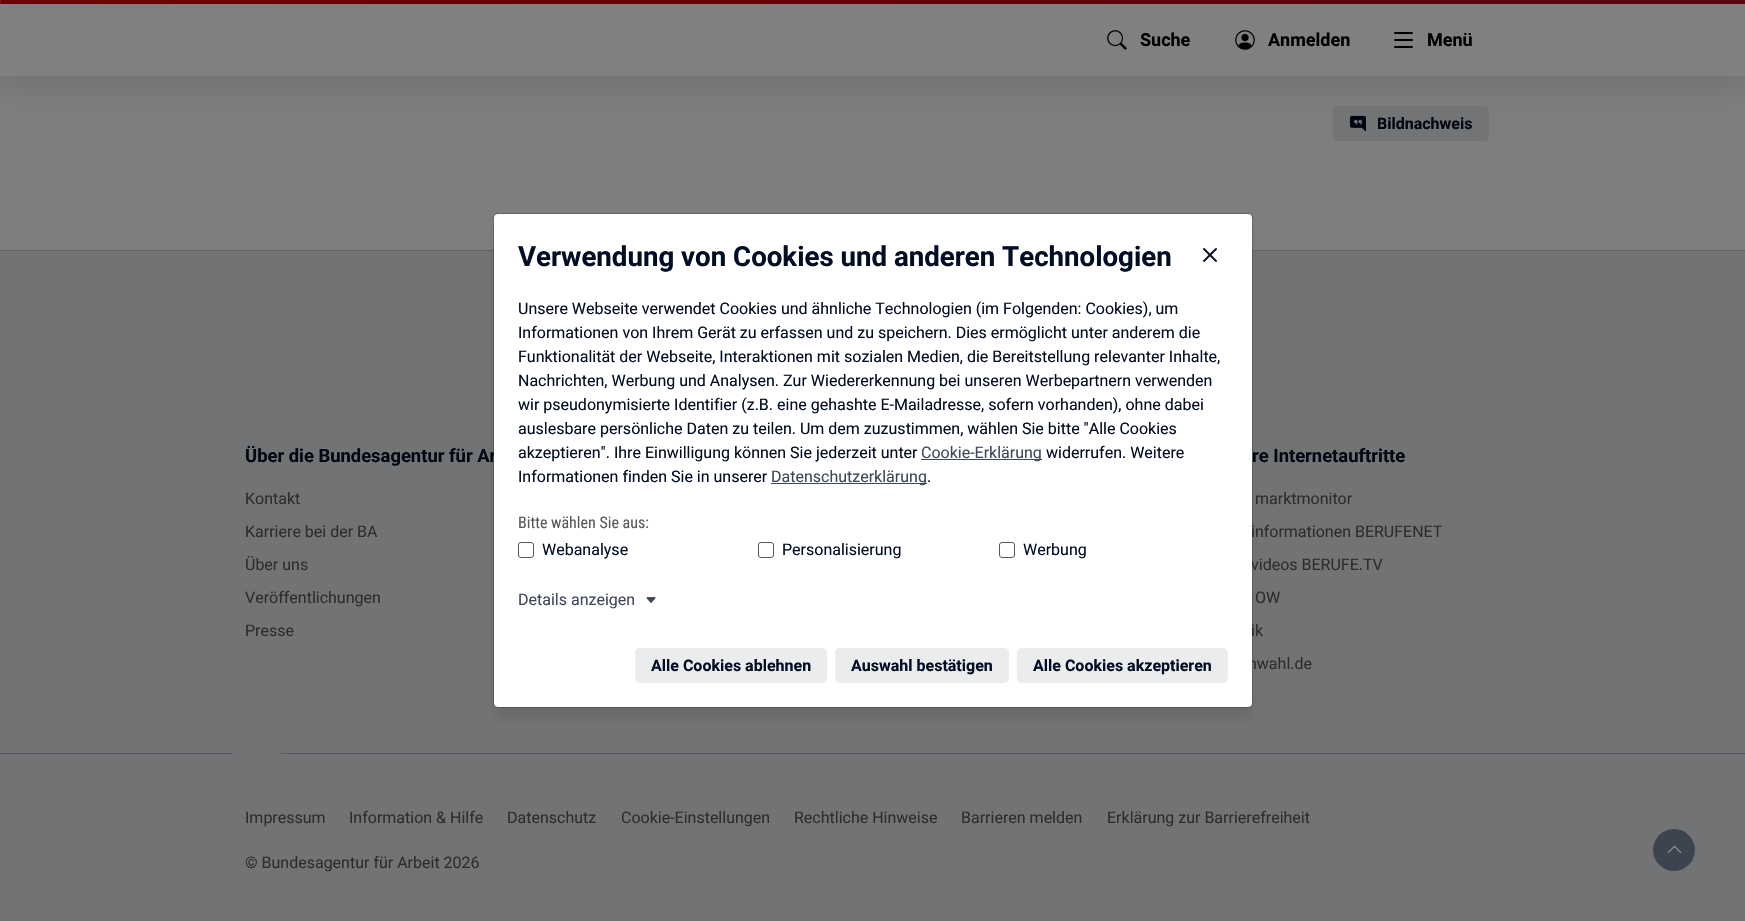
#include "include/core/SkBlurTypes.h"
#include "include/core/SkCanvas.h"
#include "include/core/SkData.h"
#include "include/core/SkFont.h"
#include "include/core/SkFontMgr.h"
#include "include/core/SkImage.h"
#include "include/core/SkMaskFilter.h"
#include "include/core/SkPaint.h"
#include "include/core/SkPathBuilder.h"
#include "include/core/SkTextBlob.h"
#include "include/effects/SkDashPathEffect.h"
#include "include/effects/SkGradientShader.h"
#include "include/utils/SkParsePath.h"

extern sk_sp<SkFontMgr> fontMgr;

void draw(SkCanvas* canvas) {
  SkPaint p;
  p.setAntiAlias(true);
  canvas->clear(SkColorSetRGB(125, 126, 126));
  {
    const SkColor colors[] = {SkColorSetRGB(116, 0, 0), SkColorSetRGB(90, 5, 16)};
    const float stops[] = {0, 1};
    const SkPoint ends[] = {{0, -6}, {1745, -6}};
    p.setShader(SkGradientShader::MakeLinear(ends, colors, stops, 2, SkTileMode::kClamp));
    p.setAlpha(255);
  }
  canvas->drawPath(SkPathBuilder().moveTo(20, -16).lineTo(1745, -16).lineTo(1745, 4).lineTo(0, 4).cubicTo(0, -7, 9, -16, 20, -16).close().detach(), p);
  p.setShader(nullptr);
  p.setColor(SkColorSetRGB(115, 116, 118));
  canvas->drawRoundRect(SkRect::MakeLTRB(1333, 106, 1489, 141), 5, 5, p);
  canvas->drawImageRect(SkImages::DeferredFromEncodedData(SkData::MakeFromFileName("images/3.png")), SkRect::MakeLTRB(1350, 115, 1366, 132), SkSamplingOptions());
  p.setColor(SkColorSetARGB(20, 0, 0, 0));
  p.setMaskFilter(SkMaskFilter::MakeBlur(kNormal_SkBlurStyle, 12));
  canvas->drawRect(SkRect::MakeLTRB(-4, 12, 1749, 92), p);
  p.setMaskFilter(nullptr);
  p.setColor(SkColorSetRGB(128, 128, 128));
  canvas->drawRect(SkRect::MakeLTRB(0, 4, 1745, 76), p);
  canvas->drawImageRect(SkImages::DeferredFromEncodedData(SkData::MakeFromFileName("images/1.png")), SkRect::MakeLTRB(1107, 30, 1127, 50), SkSamplingOptions());
  canvas->drawImageRect(SkImages::DeferredFromEncodedData(SkData::MakeFromFileName("images/2.png")), SkRect::MakeLTRB(1235, 30, 1255, 50), SkSamplingOptions());
  p.setColor(SK_ColorBLACK);
  canvas->drawRoundRect(SkRect::MakeLTRB(1394, 39, 1413, 41), 1, 1, p);
  canvas->drawRoundRect(SkRect::MakeLTRB(1394, 32, 1413, 34), 1, 1, p);
  canvas->drawRoundRect(SkRect::MakeLTRB(1394, 46, 1413, 48), 1, 1, p);
  p.setColor(SkColorSetRGB(114, 115, 116));
  canvas->drawRect(SkRect::MakeLTRB(0, 251, 1745, 921), p);
  p.setColor(SkColorSetRGB(96, 98, 100));
  canvas->drawRect(SkRect::MakeLTRB(0, 250, 1745, 251), p);
  p.setColor(SkColorSetARGB(20, 0, 0, 0));
  p.setMaskFilter(SkMaskFilter::MakeBlur(kNormal_SkBlurStyle, 5));
  canvas->drawRoundRect(SkRect::MakeLTRB(495, 227, 1251, 718), 3, 3, p);
  p.setMaskFilter(nullptr);
  p.setColor(SkColorSetRGB(86, 88, 92));
  canvas->drawRect(SkRect::MakeLTRB(0, 753, 1745, 754), p);
  p.setColor(SkColorSetRGB(114, 115, 116));
  canvas->drawRect(SkRect::MakeLTRB(233, 753, 281, 754), p);
  p.setColor(SkColorSetRGB(61, 67, 79));
  canvas->drawCircle(1674, 850, 21, p);
  canvas->drawImageRect(SkImages::DeferredFromEncodedData(SkData::MakeFromFileName("images/6.png")), SkRect::MakeLTRB(1667, 845, 1682, 854), SkSamplingOptions());
  SkFont font1(fontMgr->matchFamilyStyle("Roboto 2", SkFontStyle::Bold()), 18);
  font1.setSubpixel(true);
  p.setColor(SK_ColorBLACK);
  canvas->drawString("Suche", 1140, 46, font1, p);
  canvas->drawString("Anmelden", 1268, 46, font1, p);
  canvas->drawString("Menü", 1427, 46, font1, p);
  SkFont font2(fontMgr->matchFamilyStyle("Roboto 2", SkFontStyle::Bold()), 16);
  font2.setSubpixel(true);
  p.setColor(SkColorSetRGB(1, 7, 19));
  canvas->drawString("Bildnachweis", 1377, 129, font2, p);
  SkFont font3(fontMgr->matchFamilyStyle("Roboto", SkFontStyle::Bold()), 18.4f);
  font3.setSubpixel(true);
  canvas->drawString("Über die Bundesagentur für Ar", 245, 462, font3, p);
  SkFont font4(fontMgr->matchFamilyStyle("Roboto", SkFontStyle::Normal()), 16);
  font4.setSubpixel(true);
  p.setColor(SkColorSetRGB(45, 45, 45));
  canvas->drawString("Kontakt", 245, 504, font4, p);
  canvas->drawString("Karriere bei der BA", 245, 537, font4, p);
  canvas->drawString("Über uns", 245, 570, font4, p);
  canvas->drawString("Veröffentlichungen", 245, 603, font4, p);
  canvas->drawString("Presse", 245, 636, font4, p);
  p.setColor(SkColorSetRGB(1, 7, 19));
  canvas->drawString("re Internetauftritte", 1252, 462, font3, p);
  p.setColor(SkColorSetRGB(45, 45, 45));
  canvas->drawString("marktmonitor", 1255, 504, font4, p);
  canvas->drawString("informationen BERUFENET", 1251, 537, font4, p);
  canvas->drawString("videos BERUFE.TV", 1251, 570, font4, p);
  canvas->drawString("OW", 1255, 603, font4, p);
  canvas->drawString("ik", 1251, 636, font4, p);
  canvas->drawString("nwahl.de", 1248, 669, font4, p);
  p.setColor(SK_ColorWHITE);
  canvas->drawRoundRect(SkRect::MakeLTRB(494, 214, 1252, 707), 4, 4, p);
  p.setStyle(SkPaint::kStroke_Style);
  p.setStrokeWidth(1);
  p.setColor(SkColorSetARGB(46, 0, 0, 0));
  canvas->drawRoundRect(SkRect::MakeLTRB(493.5f, 213.5f, 1252.5f, 707.5f), 4.5f, 4.5f, p);
  canvas->drawImageRect(SkImages::DeferredFromEncodedData(SkData::MakeFromFileName("images/4.png")), SkRect::MakeLTRB(1203, 248, 1217, 262), SkSamplingOptions());
  p.setStyle(SkPaint::kFill_Style);
  p.setColor(SkColorSetRGB(235, 236, 238));
  canvas->drawRoundRect(SkRect::MakeLTRB(1017, 648, 1228, 683), 5, 5, p);
  p.setColor(SkColorSetRGB(2, 14, 37));
  canvas->drawString("Alle Cookies akzeptieren", 1033, 671, font2, p);
  p.setColor(SkColorSetRGB(235, 236, 238));
  canvas->drawRoundRect(SkRect::MakeLTRB(835, 648, 1009, 683), 5, 5, p);
  p.setColor(SkColorSetRGB(2, 14, 37));
  canvas->drawString("Auswahl bestätigen", 851, 671, font2, p);
  p.setColor(SkColorSetRGB(235, 236, 238));
  canvas->drawRoundRect(SkRect::MakeLTRB(635, 648, 827, 683), 5, 5, p);
  p.setColor(SkColorSetRGB(2, 14, 37));
  canvas->drawString("Alle Cookies ablehnen", 651, 671, font2, p);
  canvas->drawImageRect(SkImages::DeferredFromEncodedData(SkData::MakeFromFileName("images/5.png")), SkRect::MakeLTRB(646, 597, 656, 603), SkSamplingOptions());
  p.setColor(SkColorSetRGB(63, 72, 89));
  canvas->drawString("Details anzeigen", 518, 605, font4, p);
  p.setStyle(SkPaint::kStroke_Style);
  p.setColor(SkColorSetRGB(89, 89, 89));
  canvas->drawRoundRect(SkRect::MakeLTRB(999.5f, 542.5f, 1014.5f, 557.5f), 2.5f, 2.5f, p);
  p.setStyle(SkPaint::kFill_Style);
  p.setColor(SkColorSetRGB(2, 14, 37));
  canvas->drawString("Werbung", 1023, 555, font4, p);
  p.setStyle(SkPaint::kStroke_Style);
  p.setColor(SkColorSetRGB(89, 89, 89));
  canvas->drawRoundRect(SkRect::MakeLTRB(758.5f, 542.5f, 773.5f, 557.5f), 2.5f, 2.5f, p);
  p.setStyle(SkPaint::kFill_Style);
  p.setColor(SkColorSetRGB(2, 14, 37));
  canvas->drawString("Personalisierung", 782, 555, font4, p);
  p.setStyle(SkPaint::kStroke_Style);
  p.setColor(SkColorSetRGB(89, 89, 89));
  canvas->drawRoundRect(SkRect::MakeLTRB(518.5f, 542.5f, 533.5f, 557.5f), 2.5f, 2.5f, p);
  p.setStyle(SkPaint::kFill_Style);
  p.setColor(SkColorSetRGB(2, 14, 37));
  canvas->drawString("Webanalyse", 542, 555, font4, p);
  SkFont font5(fontMgr->matchFamilyStyle("Roboto Condensed", SkFontStyle::Normal()), 16);
  font5.setSubpixel(true);
  p.setColor(SkColorSetRGB(89, 89, 89));
  canvas->drawString("Bitte wählen Sie aus:", 518, 528, font5, p);
  p.setColor(SkColorSetRGB(2, 14, 37));
  canvas->drawString(".", 927, 482, font4, p);
  p.setColor(SkColorSetRGB(63, 72, 89));
  canvas->drawRect(SkRect::MakeLTRB(771, 483, 927, 484), p);
  canvas->drawString("Datenschutzerklärung", 771, 482, font4, p);
  p.setColor(SkColorSetRGB(2, 14, 37));
  canvas->drawString("Informationen finden Sie in unserer", 518, 482, font4, p);
  canvas->drawString("widerrufen. Weitere", 1046, 458, font4, p);
  p.setColor(SkColorSetRGB(63, 72, 89));
  canvas->drawRect(SkRect::MakeLTRB(921, 459, 1042, 460), p);
  canvas->drawString("Cookie-Erklärung", 921, 458, font4, p);
  p.setColor(SkColorSetRGB(2, 14, 37));
  canvas->drawString("akzeptieren\". Ihre Einwilligung können Sie jederzeit unter", 518, 458, font4, p);
  canvas->drawString("auslesbare persönliche Daten zu teilen. Um dem zuzustimmen, wählen Sie bitte \"Alle Cookies", 518, 434, font4, p);
  canvas->drawString("wir pseudonymisierte Identifier (z.B. eine gehashte E-Mailadresse, sofern vorhanden), ohne dabei", 518, 410, font4, p);
  canvas->drawString("Nachrichten, Werbung und Analysen. Zur Wiedererkennung bei unseren Werbepartnern verwenden", 518, 386, font4, p);
  canvas->drawString("Funktionalität der Webseite, Interaktionen mit sozialen Medien, die Bereitstellung relevanter Inhalte,", 518, 362, font4, p);
  canvas->drawString("Informationen von Ihrem Gerät zu erfassen und zu speichern. Dies ermöglicht unter anderem die", 518, 338, font4, p);
  canvas->drawString("Unsere Webseite verwendet Cookies und ähnliche Technologien (im Folgenden: Cookies), um", 518, 314, font4, p);
  SkFont font6(fontMgr->matchFamilyStyle("Roboto", SkFontStyle::Bold()), 27.65f);
  font6.setSubpixel(true);
  canvas->drawString("Verwendung von Cookies und anderen Technologien", 518, 266, font6, p);
  p.setColor(SkColorSetRGB(45, 45, 45));
  canvas->drawString("Impressum", 245, 823, font4, p);
  canvas->drawString("Information & Hilfe", 349, 823, font4, p);
  canvas->drawString("Datenschutz", 507, 823, font4, p);
  canvas->drawString("Cookie-Einstellungen", 621, 823, font4, p);
  canvas->drawString("Rechtliche Hinweise", 794, 823, font4, p);
  canvas->drawString("Barrieren melden", 961, 823, font4, p);
  canvas->drawString("Erklärung zur Barrierefreiheit", 1107, 823, font4, p);
  canvas->drawString("© Bundesagentur für Arbeit 2026", 245, 868, font4, p);
}
